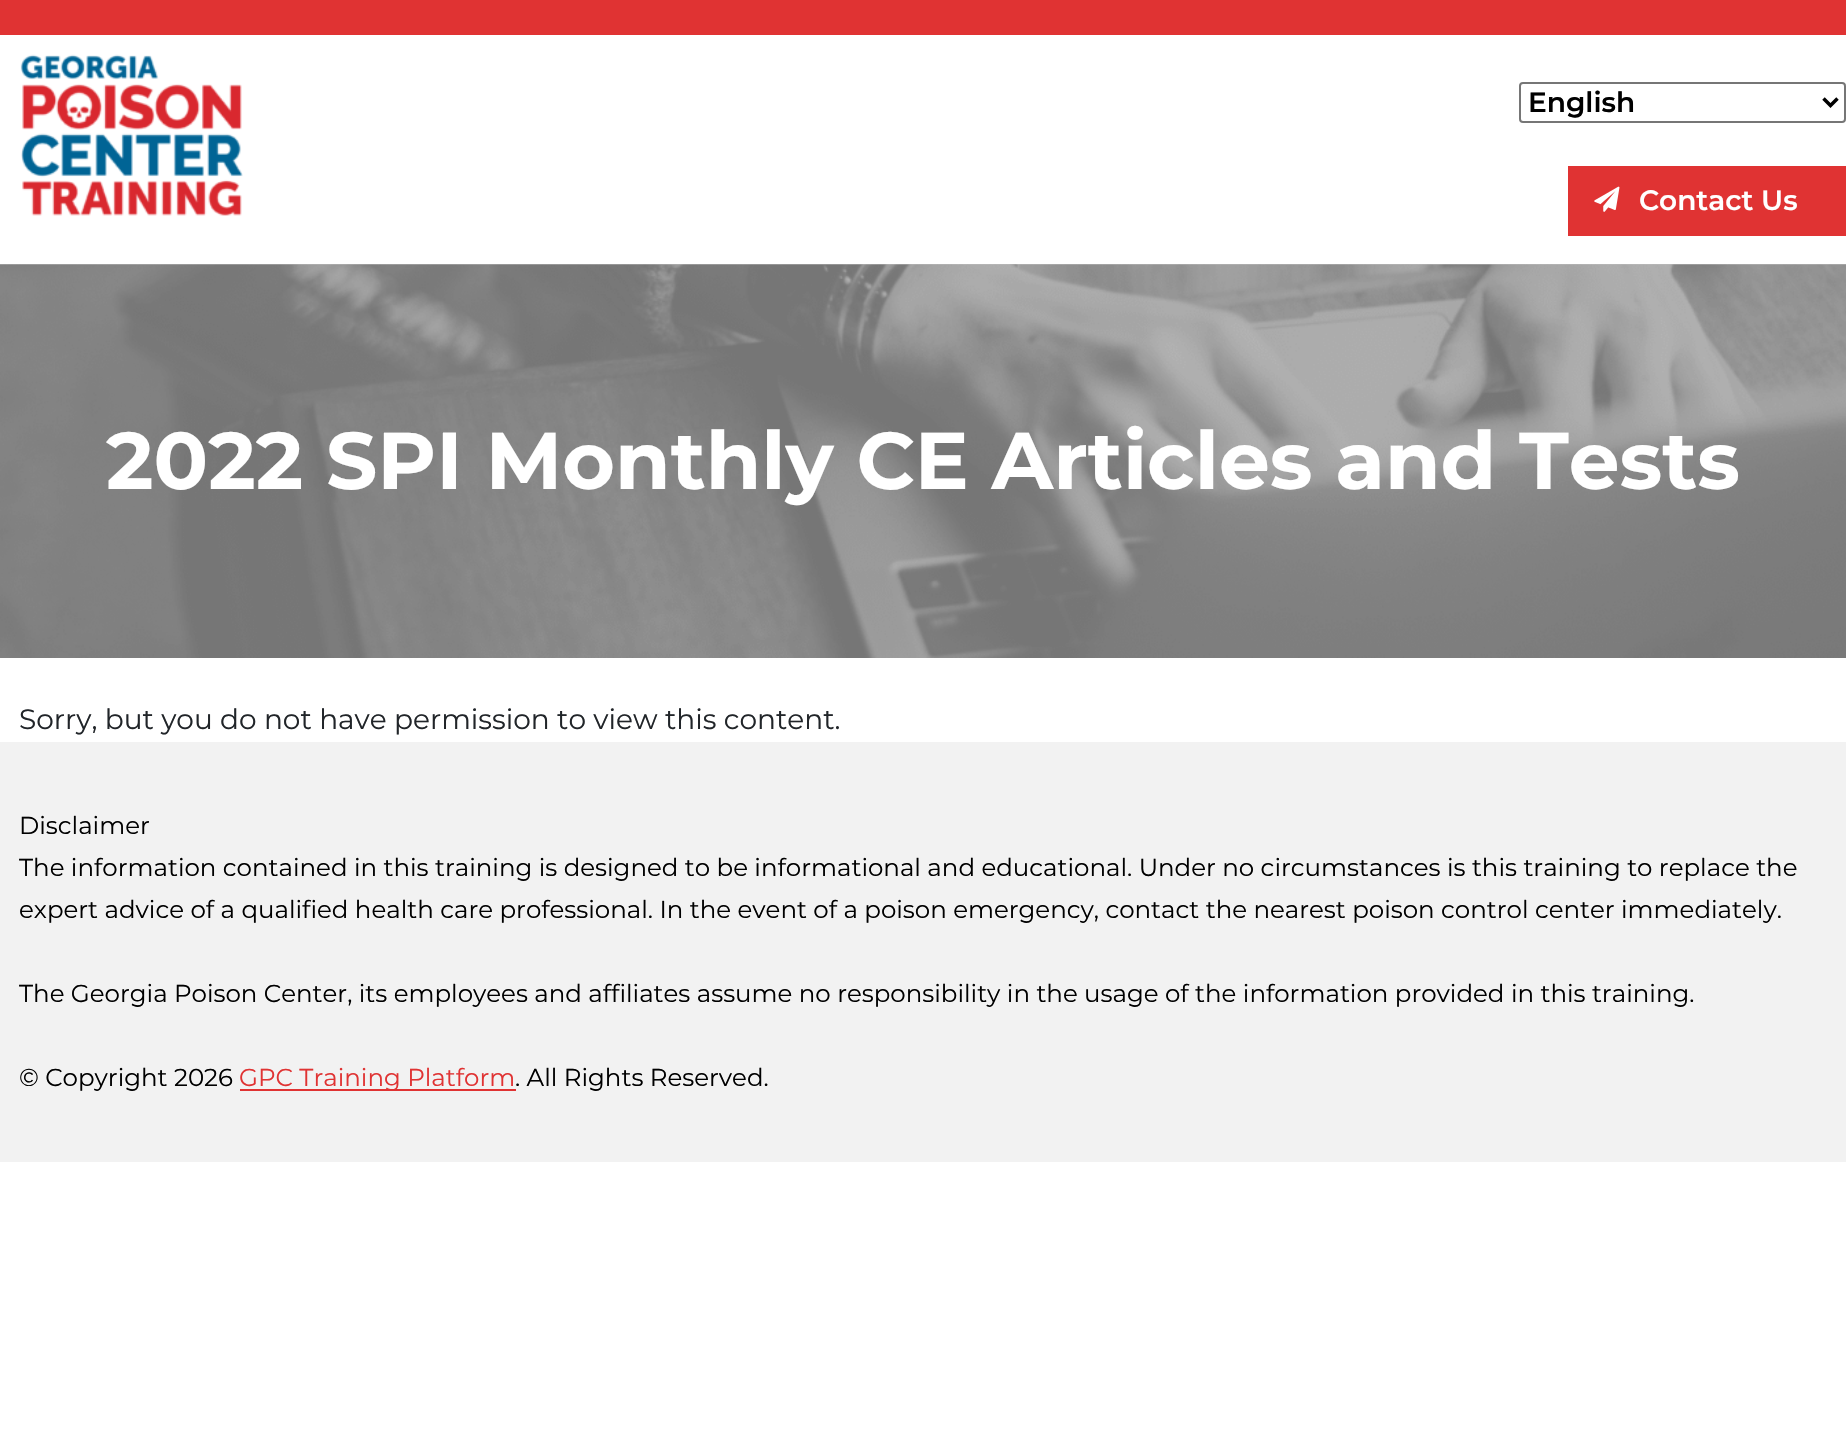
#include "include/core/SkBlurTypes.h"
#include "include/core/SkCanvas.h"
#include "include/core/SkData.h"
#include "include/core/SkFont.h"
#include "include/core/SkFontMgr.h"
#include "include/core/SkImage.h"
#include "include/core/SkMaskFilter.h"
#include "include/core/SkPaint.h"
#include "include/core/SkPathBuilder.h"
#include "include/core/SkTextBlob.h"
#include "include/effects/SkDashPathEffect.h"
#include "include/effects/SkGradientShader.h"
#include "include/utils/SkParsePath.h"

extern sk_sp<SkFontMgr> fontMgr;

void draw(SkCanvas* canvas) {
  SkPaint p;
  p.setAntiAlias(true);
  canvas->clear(SK_ColorWHITE);
  p.setColor(SkColorSetRGB(191, 191, 191));
  canvas->drawRect(SkRect::MakeLTRB(0, 264, 1846, 265), p);
  p.setColor(SkColorSetRGB(224, 51, 51));
  canvas->drawRect(SkRect::MakeLTRB(0, 0, 1846, 35), p);
  canvas->drawImageRect(SkImages::DeferredFromEncodedData(SkData::MakeFromFileName("images/1.png")), SkRect::MakeLTRB(20, 54, 243, 216), SkSamplingOptions());
  p.setStyle(SkPaint::kStroke_Style);
  p.setStrokeWidth(2);
  p.setColor(SkColorSetRGB(118, 118, 118));
  canvas->drawRoundRect(SkRect::MakeLTRB(1520, 83, 1845, 122), 3, 3, p);
  p.setStrokeWidth(3.5f);
  p.setColor(SK_ColorBLACK);
  canvas->drawPath(SkPathBuilder().moveTo(1823.5f, 98.5f).lineTo(1830.5f, 105.5f).lineTo(1837.5f, 98.5f).detach(), p);
  p.setStyle(SkPaint::kFill_Style);
  p.setColor(SkColorSetRGB(224, 51, 51));
  canvas->drawRect(SkRect::MakeLTRB(1568, 166, 1846, 236), p);
  canvas->drawImageRect(SkImages::DeferredFromEncodedData(SkData::MakeFromFileName("images/2.png")), SkRect::MakeLTRB(1594, 186, 1620, 212), SkSamplingOptions());
  canvas->drawImageRect(SkImages::DeferredFromEncodedData(SkData::MakeFromFileName("images/3.png")), SkRect::MakeLTRB(0, 264, 1846, 658), SkSamplingOptions());
  p.setColor(SkColorSetRGB(242, 242, 242));
  canvas->drawRect(SkRect::MakeLTRB(0, 742, 1846, 1162), p);
  p.setColor(SkColorSetRGB(224, 51, 51));
  canvas->drawRect(SkRect::MakeLTRB(240, 1089, 516, 1091), p);
  SkFont font1(fontMgr->matchFamilyStyle("Montserrat", SkFontStyle(600, SkFontStyle::kNormal_Width, SkFontStyle::kUpright_Slant)), 28);
  font1.setSubpixel(true);
  p.setColor(SK_ColorBLACK);
  canvas->drawString("English", 1528, 112, font1, p);
  p.setColor(SK_ColorWHITE);
  canvas->drawString("Contact Us", 1639, 210, font1, p);
  SkFont font2(fontMgr->matchFamilyStyle("Montserrat", SkFontStyle::Bold()), 80.5f);
  font2.setSubpixel(true);
  canvas->drawString("2022 SPI Monthly CE Articles and Tests", 106, 489, font2, p);
  SkFont font3(fontMgr->matchFamilyStyle("Montserrat", SkFontStyle::Normal()), 28);
  font3.setSubpixel(true);
  p.setColor(SkColorSetRGB(33, 37, 41));
  canvas->drawString("Sorry, but you do not have permission to view this content.", 19, 729, font3, p);
  SkFont font4(fontMgr->matchFamilyStyle("Montserrat", SkFontStyle::Normal()), 24.5f);
  font4.setSubpixel(true);
  p.setColor(SK_ColorBLACK);
  canvas->drawString("Disclaimer", 19, 834, font4, p);
  canvas->drawString("The information contained in this training is designed to be informational and educational. Under no circumstances is this training to replace the", 19, 876, font4, p);
  canvas->drawString("expert advice of a qualified health care professional. In the event of a poison emergency, contact the nearest poison control center immediately.", 19, 918, font4, p);
  canvas->drawString("The Georgia Poison Center, its employees and affiliates assume no responsibility in the usage of the information provided in this training.", 19, 1002, font4, p);
  canvas->drawString("© Copyright 2026", 19, 1086, font4, p);
  p.setColor(SkColorSetRGB(224, 51, 51));
  canvas->drawString("GPC Training Platform", 239, 1086, font4, p);
  p.setColor(SK_ColorBLACK);
  canvas->drawString(". All Rights Reserved.", 515, 1086, font4, p);
}
